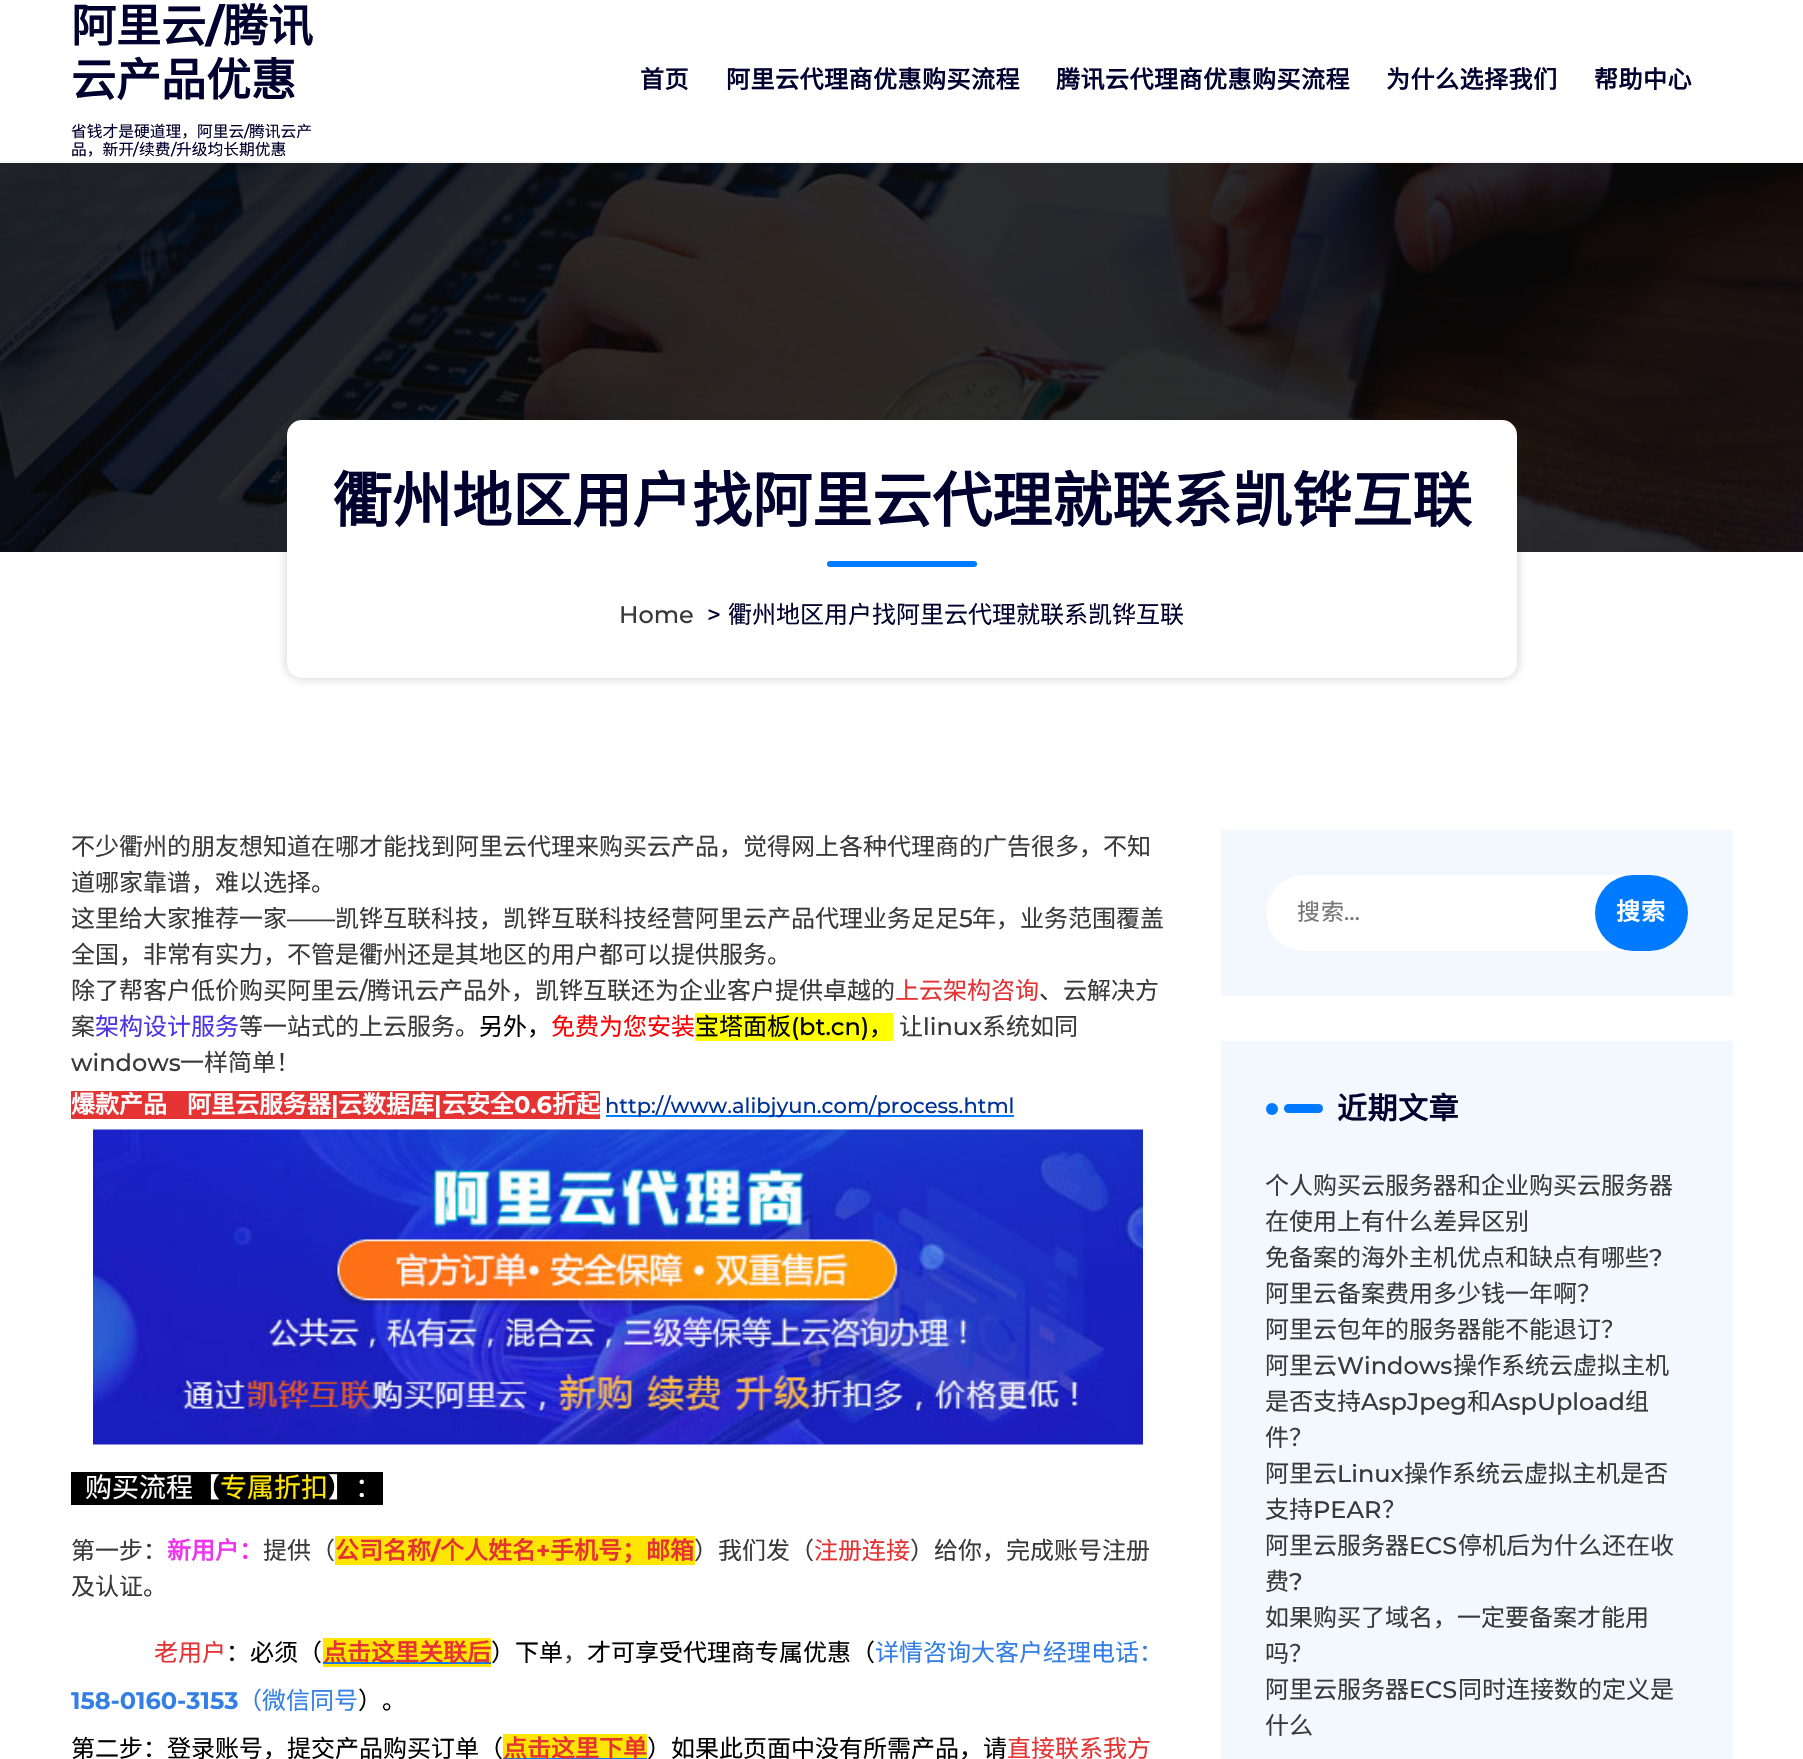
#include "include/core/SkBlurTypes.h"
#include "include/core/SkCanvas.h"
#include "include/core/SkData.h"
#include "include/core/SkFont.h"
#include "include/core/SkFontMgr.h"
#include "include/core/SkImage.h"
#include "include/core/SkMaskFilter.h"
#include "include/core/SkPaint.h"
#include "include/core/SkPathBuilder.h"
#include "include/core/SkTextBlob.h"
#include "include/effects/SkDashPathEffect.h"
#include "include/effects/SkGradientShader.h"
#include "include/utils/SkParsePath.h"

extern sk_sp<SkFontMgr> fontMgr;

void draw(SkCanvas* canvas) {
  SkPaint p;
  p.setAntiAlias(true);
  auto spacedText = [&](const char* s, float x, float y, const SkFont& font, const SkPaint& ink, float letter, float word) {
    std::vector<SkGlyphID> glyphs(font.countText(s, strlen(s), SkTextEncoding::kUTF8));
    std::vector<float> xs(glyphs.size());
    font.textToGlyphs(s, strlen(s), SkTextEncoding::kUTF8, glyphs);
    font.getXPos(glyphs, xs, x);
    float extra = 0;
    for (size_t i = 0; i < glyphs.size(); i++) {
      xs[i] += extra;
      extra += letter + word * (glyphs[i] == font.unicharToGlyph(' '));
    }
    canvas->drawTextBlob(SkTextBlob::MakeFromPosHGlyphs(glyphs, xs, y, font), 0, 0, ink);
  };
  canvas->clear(SK_ColorWHITE);
  p.setColor(SkColorSetRGB(247, 247, 247));
  canvas->drawRect(SkRect::MakeLTRB(0, 161, 1803, 163), p);
  canvas->drawImageRect(SkImages::DeferredFromEncodedData(SkData::MakeFromFileName("images/1.png")), SkRect::MakeLTRB(0, 163, 1803, 552), SkSamplingOptions());
  p.setColor(SkColorSetARGB(59, 33, 33, 33));
  p.setMaskFilter(SkMaskFilter::MakeBlur(kNormal_SkBlurStyle, 5.5f));
  canvas->drawRoundRect(SkRect::MakeLTRB(287, 420, 1517, 678), 15, 15, p);
  p.setMaskFilter(nullptr);
  p.setColor(SK_ColorWHITE);
  canvas->drawRoundRect(SkRect::MakeLTRB(287, 420, 1517, 678), 15, 15, p);
  p.setColor(SkColorSetRGB(0, 123, 255));
  canvas->drawRoundRect(SkRect::MakeLTRB(827, 561, 977, 567), 3, 3, p);
  p.setColor(SkColorSetRGB(255, 255, 0));
  canvas->drawRect(SkRect::MakeLTRB(695, 1013, 893, 1041), p);
  p.setColor(SkColorSetRGB(229, 51, 51));
  canvas->drawRect(SkRect::MakeLTRB(71, 1091, 600, 1119), p);
  p.setColor(SkColorSetRGB(0, 123, 255));
  canvas->drawRect(SkRect::MakeLTRB(606, 1115, 1014, 1117), p);
  canvas->drawImageRect(SkImages::DeferredFromEncodedData(SkData::MakeFromFileName("images/2.png")), SkRect::MakeLTRB(93, 1129, 1143, 1445), SkSamplingOptions());
  p.setColor(SK_ColorBLACK);
  canvas->drawRect(SkRect::MakeLTRB(71, 1472, 383, 1505), p);
  p.setColor(SkColorSetRGB(255, 229, 0));
  canvas->drawRect(SkRect::MakeLTRB(335, 1536, 695, 1565), p);
  canvas->drawRect(SkRect::MakeLTRB(323, 1638, 491, 1667), p);
  p.setColor(SkColorSetRGB(0, 123, 255));
  canvas->drawRect(SkRect::MakeLTRB(323, 1662, 491, 1664), p);
  p.setColor(SkColorSetRGB(255, 229, 0));
  canvas->drawRect(SkRect::MakeLTRB(503, 1734, 647, 1758), p);
  p.setColor(SkColorSetRGB(0, 123, 255));
  canvas->drawRect(SkRect::MakeLTRB(503, 1758, 647, 1759), p);
  p.setColor(SkColorSetRGB(243, 248, 254));
  canvas->drawRect(SkRect::MakeLTRB(1221, 830, 1733, 996), p);
  p.setColor(SK_ColorWHITE);
  canvas->drawRoundRect(SkRect::MakeLTRB(1266, 875, 1688, 951), 38, 38, p);
  p.setColor(SkColorSetRGB(0, 123, 255));
  canvas->drawRoundRect(SkRect::MakeLTRB(1595, 875, 1688, 951), 38, 38, p);
  p.setColor(SkColorSetRGB(243, 248, 254));
  canvas->drawRect(SkRect::MakeLTRB(1221, 1041, 1733, 1759), p);
  p.setColor(SkColorSetRGB(0, 123, 255));
  canvas->drawCircle(1272, 1109, 6, p);
  canvas->drawRoundRect(SkRect::MakeLTRB(1284, 1104, 1323, 1113), 4.5f, 4.5f, p);
  SkFont font1(fontMgr->matchFamilyStyle("Noto Sans CJK SC", SkFontStyle::Bold()), 45);
  font1.setSubpixel(true);
  p.setColor(SkColorSetRGB(1, 1, 47));
  canvas->drawString("阿里云", 71, 42, font1, p);
  SkFont font2(fontMgr->matchFamilyStyle("Montserrat", SkFontStyle::Bold()), 45);
  font2.setSubpixel(true);
  canvas->drawString("/", 206, 42, font2, p);
  canvas->drawString("腾讯", 223, 42, font1, p);
  canvas->drawString("云产品优惠", 71, 96, font1, p);
  SkFont font3(fontMgr->matchFamilyStyle("Noto Sans CJK SC", SkFontStyle::Normal()), 15.75f);
  font3.setSubpixel(true);
  canvas->drawString("省钱才是硬道理，阿里云", 71, 137, font3, p);
  SkFont font4(fontMgr->matchFamilyStyle("Montserrat", SkFontStyle(500, SkFontStyle::kNormal_Width, SkFontStyle::kUpright_Slant)), 15.75f);
  font4.setSubpixel(true);
  canvas->drawString("/", 244, 137, font4, p);
  canvas->drawString("腾讯云产", 249, 137, font3, p);
  canvas->drawString("品，新开", 71, 155, font3, p);
  canvas->drawString("/", 133, 155, font4, p);
  canvas->drawString("续费", 139, 155, font3, p);
  canvas->drawString("/", 171, 155, font4, p);
  canvas->drawString("升级均长期优惠", 176, 155, font3, p);
  SkFont font5(fontMgr->matchFamilyStyle("Noto Sans CJK SC", SkFontStyle::Bold()), 24);
  font5.setSubpixel(true);
  spacedText("首页", 640, 88, font5, p, 0.5f, 0);
  spacedText("阿里云代理商优惠购买流程", 726, 88, font5, p, 0.5f, 0);
  spacedText("腾讯云代理商优惠购买流程", 1056, 88, font5, p, 0.5f, 0);
  spacedText("为什么选择我们", 1386, 88, font5, p, 0.5f, 0);
  spacedText("帮助中心", 1594, 88, font5, p, 0.5f, 0);
  SkFont font6(fontMgr->matchFamilyStyle("Noto Sans CJK SC", SkFontStyle::Bold()), 60);
  font6.setSubpixel(true);
  canvas->drawString("衢州地区用户找阿里云代理就联系凯铧互联", 332, 522, font6, p);
  SkFont font7(fontMgr->matchFamilyStyle("Montserrat", SkFontStyle(500, SkFontStyle::kNormal_Width, SkFontStyle::kUpright_Slant)), 24);
  font7.setSubpixel(true);
  p.setColor(SkColorSetRGB(57, 57, 57));
  canvas->drawString("Home", 619, 623, font7, p);
  p.setColor(SkColorSetRGB(1, 1, 47));
  canvas->drawString(">", 707, 623, font7, p);
  SkFont font8(fontMgr->matchFamilyStyle("Noto Sans CJK SC", SkFontStyle::Normal()), 24);
  font8.setSubpixel(true);
  canvas->drawString("衢州地区用户找阿里云代理就联系凯铧互联", 728, 623, font8, p);
  p.setColor(SkColorSetRGB(57, 57, 57));
  canvas->drawString("不少衢州的朋友想知道在哪才能找到阿里云代理来购买云产品，觉得网上各种代理商的广告很多，不知", 71, 855, font8, p);
  canvas->drawString("道哪家靠谱，难以选择。", 71, 891, font8, p);
  canvas->drawString("这里给大家推荐一家", 71, 927, font8, p);
  canvas->drawString("——", 287, 927, font7, p);
  canvas->drawString("凯铧互联科技，凯铧互联科技经营阿里云产品代理业务足足", 335, 927, font8, p);
  canvas->drawString("5", 959, 927, font7, p);
  canvas->drawString("年，业务范围覆盖", 972, 927, font8, p);
  canvas->drawString("全国，非常有实力，不管是衢州还是其地区的用户都可以提供服务。", 71, 963, font8, p);
  canvas->drawString("除了帮客户低价购买阿里云", 71, 999, font8, p);
  canvas->drawString("/", 359, 999, font7, p);
  canvas->drawString("腾讯云产品外，凯铧互联还为企业客户提供卓越的", 367, 999, font8, p);
  p.setColor(SkColorSetRGB(229, 51, 51));
  canvas->drawString("上云架构咨询", 895, 999, font8, p);
  p.setColor(SkColorSetRGB(57, 57, 57));
  canvas->drawString("、云解决方", 1039, 999, font8, p);
  canvas->drawString("案", 71, 1035, font8, p);
  p.setColor(SkColorSetRGB(76, 51, 229));
  canvas->drawString("架构设计服务", 95, 1035, font8, p);
  p.setColor(SkColorSetRGB(57, 57, 57));
  canvas->drawString("等一站式的上云服务。", 239, 1035, font8, p);
  p.setColor(SK_ColorBLACK);
  canvas->drawString("另外，", 479, 1035, font8, p);
  p.setColor(SkColorSetRGB(255, 0, 0));
  canvas->drawString("免费为您安装", 551, 1035, font8, p);
  p.setColor(SK_ColorBLACK);
  canvas->drawString("宝塔面板", 695, 1035, font8, p);
  canvas->drawString("(bt.cn)", 791, 1035, font7, p);
  canvas->drawString("，", 869, 1035, font8, p);
  p.setColor(SkColorSetRGB(57, 57, 57));
  canvas->drawString("让", 899, 1035, font8, p);
  canvas->drawString("linux", 923, 1035, font7, p);
  canvas->drawString("系统如同", 982, 1035, font8, p);
  canvas->drawString("windows", 71, 1071, font7, p);
  canvas->drawString("一样简单！", 180, 1071, font8, p);
  p.setColor(SK_ColorWHITE);
  canvas->drawString("爆款产品", 71, 1113, font5, p);
  canvas->drawString("阿里云服务器", 187, 1113, font5, p);
  SkFont font9(fontMgr->matchFamilyStyle("Montserrat", SkFontStyle::Bold()), 24);
  font9.setSubpixel(true);
  canvas->drawString("|", 331, 1113, font9, p);
  canvas->drawString("云数据库", 338, 1113, font5, p);
  canvas->drawString("|", 434, 1113, font9, p);
  canvas->drawString("云安全", 442, 1113, font5, p);
  canvas->drawString("0.6", 514, 1113, font9, p);
  canvas->drawString("折起", 552, 1113, font5, p);
  SkFont font10(fontMgr->matchFamilyStyle("Montserrat", SkFontStyle(500, SkFontStyle::kNormal_Width, SkFontStyle::kUpright_Slant)), 21);
  font10.setSubpixel(true);
  p.setColor(SkColorSetRGB(0, 51, 153));
  canvas->drawString("http://www.alibjyun.com/process.html", 605, 1113, font10, p);
  SkFont font11(fontMgr->matchFamilyStyle("Noto Sans CJK SC", SkFontStyle::Normal()), 27);
  font11.setSubpixel(true);
  p.setColor(SK_ColorWHITE);
  canvas->drawString("购买流程【", 85, 1497, font11, p);
  p.setColor(SkColorSetRGB(255, 229, 0));
  canvas->drawString("专属折扣", 220, 1497, font11, p);
  p.setColor(SK_ColorWHITE);
  canvas->drawString("】：", 328, 1497, font11, p);
  p.setColor(SkColorSetRGB(57, 57, 57));
  canvas->drawString("第一步：", 71, 1559, font8, p);
  p.setColor(SkColorSetRGB(238, 51, 238));
  canvas->drawString("新用户：", 167, 1559, font5, p);
  p.setColor(SkColorSetRGB(57, 57, 57));
  canvas->drawString("提供（", 263, 1559, font8, p);
  p.setColor(SkColorSetRGB(229, 51, 51));
  canvas->drawString("公司名称", 335, 1559, font5, p);
  canvas->drawString("/", 431, 1559, font9, p);
  canvas->drawString("个人姓名", 440, 1559, font5, p);
  canvas->drawString("+", 536, 1559, font9, p);
  canvas->drawString("手机号；邮箱", 550, 1559, font5, p);
  p.setColor(SkColorSetRGB(57, 57, 57));
  canvas->drawString("）我们发（", 694, 1559, font8, p);
  p.setColor(SkColorSetRGB(229, 51, 51));
  canvas->drawString("注册连接", 814, 1559, font8, p);
  p.setColor(SkColorSetRGB(57, 57, 57));
  canvas->drawString("）给你，完成账号注册", 910, 1559, font8, p);
  canvas->drawString("及认证。", 71, 1595, font8, p);
  p.setColor(SkColorSetRGB(229, 51, 51));
  canvas->drawString("老用户", 154, 1661, font8, p);
  p.setColor(SK_ColorBLACK);
  canvas->drawString("：必须（", 226, 1661, font8, p);
  p.setColor(SkColorSetRGB(229, 51, 51));
  canvas->drawString("点击这里关联后", 323, 1661, font5, p);
  p.setColor(SK_ColorBLACK);
  canvas->drawString("）下单", 491, 1661, font8, p);
  p.setColor(SkColorSetRGB(57, 57, 57));
  canvas->drawString("，", 563, 1661, font8, p);
  p.setColor(SK_ColorBLACK);
  canvas->drawString("才可享受代理商专属优惠（", 587, 1661, font8, p);
  p.setColor(SkColorSetRGB(51, 127, 229));
  canvas->drawString("详情咨询大客户经理电话：", 875, 1661, font8, p);
  canvas->drawString("158-0160-3153", 71, 1709, font9, p);
  canvas->drawString("（微信同号", 238, 1709, font8, p);
  p.setColor(SK_ColorBLACK);
  canvas->drawString("）。", 358, 1709, font8, p);
  canvas->drawString("第二步：登录账号，提交产品购买订单（", 71, 1757, font8, p);
  p.setColor(SkColorSetRGB(229, 51, 51));
  canvas->drawString("点击这里下单", 503, 1757, font5, p);
  p.setColor(SK_ColorBLACK);
  canvas->drawString("）如果此页面中没有所需产品，请", 647, 1757, font8, p);
  p.setColor(SkColorSetRGB(229, 51, 51));
  canvas->drawString("直接联系我方", 1007, 1757, font8, p);
  SkFont font12(fontMgr->matchFamilyStyle("Noto Sans CJK SC", SkFontStyle::Normal()), 23);
  font12.setSubpixel(true);
  p.setColor(SkColorSetRGB(117, 117, 117));
  spacedText("搜索", 1297, 920, font12, p, 1, 0);
  SkFont font13(fontMgr->matchFamilyStyle("Montserrat", SkFontStyle(500, SkFontStyle::kNormal_Width, SkFontStyle::kUpright_Slant)), 23);
  font13.setSubpixel(true);
  spacedText("…", 1344, 920, font13, p, 1, 0);
  p.setColor(SK_ColorWHITE);
  spacedText("搜索", 1616, 920, font5, p, 1, 0);
  SkFont font14(fontMgr->matchFamilyStyle("Noto Sans CJK SC", SkFontStyle::Bold()), 30);
  font14.setSubpixel(true);
  p.setColor(SkColorSetRGB(1, 1, 47));
  spacedText("近期文章", 1337, 1119, font14, p, 0.5f, 0);
  p.setColor(SkColorSetRGB(57, 57, 57));
  canvas->drawString("个人购买云服务器和企业购买云服务器", 1265, 1194, font8, p);
  canvas->drawString("在使用上有什么差异区别", 1265, 1230, font8, p);
  canvas->drawString("免备案的海外主机优点和缺点有哪些", 1265, 1266, font8, p);
  canvas->drawString("?", 1649, 1266, font7, p);
  canvas->drawString("阿里云备案费用多少钱一年啊？", 1265, 1302, font8, p);
  canvas->drawString("阿里云包年的服务器能不能退订？", 1265, 1338, font8, p);
  canvas->drawString("阿里云", 1265, 1374, font8, p);
  canvas->drawString("Windows", 1337, 1374, font7, p);
  canvas->drawString("操作系统云虚拟主机", 1453, 1374, font8, p);
  canvas->drawString("是否支持", 1265, 1410, font8, p);
  canvas->drawString("AspJpeg", 1361, 1410, font7, p);
  canvas->drawString("和", 1467, 1410, font8, p);
  canvas->drawString("AspUpload", 1491, 1410, font7, p);
  canvas->drawString("组", 1625, 1410, font8, p);
  canvas->drawString("件？", 1265, 1446, font8, p);
  canvas->drawString("阿里云", 1265, 1482, font8, p);
  canvas->drawString("Linux", 1337, 1482, font7, p);
  canvas->drawString("操作系统云虚拟主机是否", 1404, 1482, font8, p);
  canvas->drawString("支持", 1265, 1518, font8, p);
  canvas->drawString("PEAR", 1313, 1518, font7, p);
  canvas->drawString("？", 1382, 1518, font8, p);
  canvas->drawString("阿里云服务器", 1265, 1554, font8, p);
  canvas->drawString("ECS", 1409, 1554, font7, p);
  canvas->drawString("停机后为什么还在收", 1458, 1554, font8, p);
  canvas->drawString("费", 1265, 1590, font8, p);
  canvas->drawString("?", 1289, 1590, font7, p);
  canvas->drawString("如果购买了域名，一定要备案才能用", 1265, 1626, font8, p);
  canvas->drawString("吗？", 1265, 1662, font8, p);
  canvas->drawString("阿里云服务器", 1265, 1698, font8, p);
  canvas->drawString("ECS", 1409, 1698, font7, p);
  canvas->drawString("同时连接数的定义是", 1458, 1698, font8, p);
  canvas->drawString("什么", 1265, 1734, font8, p);
}
